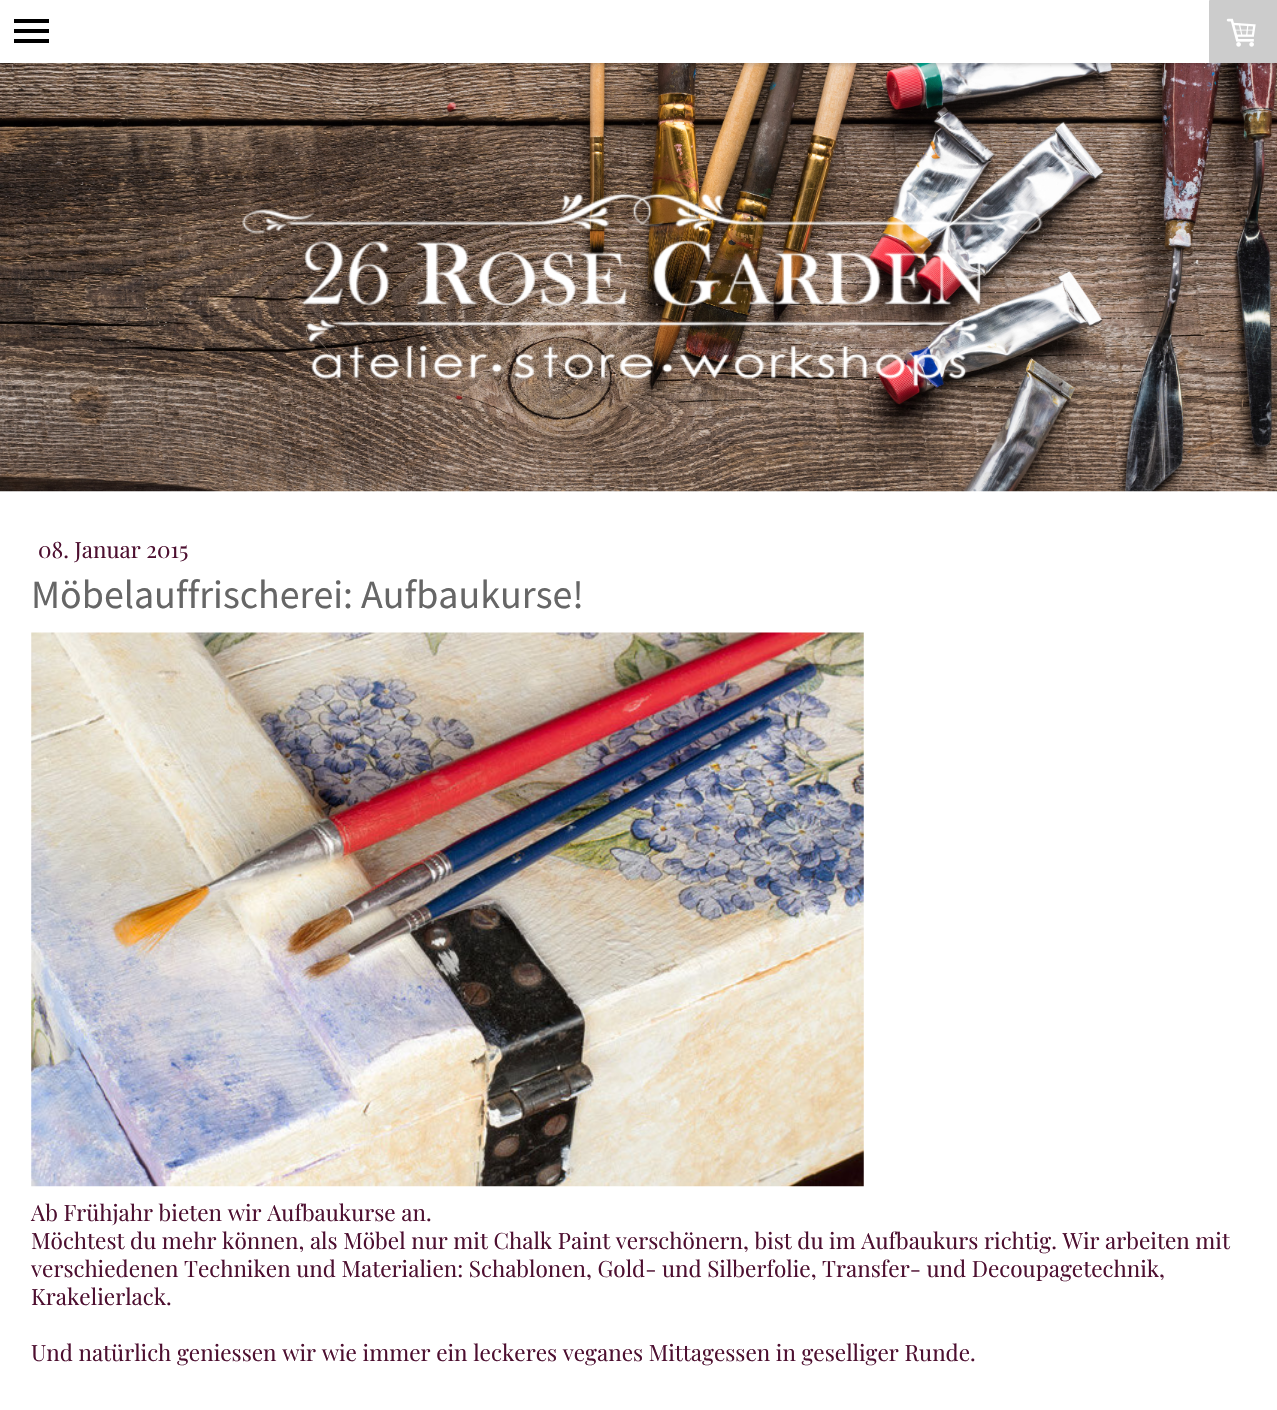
#include "include/core/SkBlurTypes.h"
#include "include/core/SkCanvas.h"
#include "include/core/SkData.h"
#include "include/core/SkFont.h"
#include "include/core/SkFontMgr.h"
#include "include/core/SkImage.h"
#include "include/core/SkMaskFilter.h"
#include "include/core/SkPaint.h"
#include "include/core/SkPathBuilder.h"
#include "include/core/SkTextBlob.h"
#include "include/effects/SkDashPathEffect.h"
#include "include/effects/SkGradientShader.h"
#include "include/utils/SkParsePath.h"

extern sk_sp<SkFontMgr> fontMgr;

void draw(SkCanvas* canvas) {
  SkPaint p;
  p.setAntiAlias(true);
  canvas->clear(SK_ColorWHITE);
  canvas->drawImageRect(SkImages::DeferredFromEncodedData(SkData::MakeFromFileName("images/2.png")), SkRect::MakeLTRB(0, 63, 1277, 492), SkSamplingOptions());
  p.setColor(SkColorSetARGB(41, 0, 0, 0));
  p.setMaskFilter(SkMaskFilter::MakeBlur(kNormal_SkBlurStyle, 2));
  canvas->drawRect(SkRect::MakeLTRB(0, 3, 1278, 65), p);
  p.setMaskFilter(nullptr);
  p.setColor(SK_ColorWHITE);
  canvas->drawRect(SkRect::MakeLTRB(0, 0, 1210, 63), p);
  p.setColor(SK_ColorBLACK);
  canvas->drawRect(SkRect::MakeLTRB(14, 29, 49, 33), p);
  canvas->drawRect(SkRect::MakeLTRB(14, 19, 49, 23), p);
  canvas->drawRect(SkRect::MakeLTRB(14, 39, 49, 43), p);
  p.setColor(SkColorSetRGB(204, 204, 204));
  canvas->drawRoundRect(SkRect::MakeLTRB(1209, 0, 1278, 63), 1, 1, p);
  canvas->drawImageRect(SkImages::DeferredFromEncodedData(SkData::MakeFromFileName("images/1.png")), SkRect::MakeLTRB(1226, 18, 1256, 47), SkSamplingOptions());
  canvas->drawImageRect(SkImages::DeferredFromEncodedData(SkData::MakeFromFileName("images/3.png")), SkRect::MakeLTRB(241, 183, 1043, 411), SkSamplingOptions());
  canvas->drawImageRect(SkImages::DeferredFromEncodedData(SkData::MakeFromFileName("images/4.png")), SkRect::MakeLTRB(31, 632, 864, 1187), SkSamplingOptions());
  SkFont font1(fontMgr->matchFamilyStyle("Playfair Display", SkFontStyle::Normal()), 22.5f);
  font1.setSubpixel(true);
  p.setColor(SkColorSetRGB(77, 15, 48));
  canvas->drawString("08. Januar 2015", 38, 558, font1, p);
  SkFont font2(fontMgr->matchFamilyStyle("Source Sans Pro", SkFontStyle::Normal()), 40);
  font2.setSubpixel(true);
  p.setColor(SkColorSetRGB(102, 102, 102));
  canvas->drawString("Möbelauffrischerei: Aufbaukurse!", 31, 608, font2, p);
  p.setColor(SkColorSetRGB(77, 15, 48));
  canvas->drawString("Ab Frühjahr bieten wir Aufbaukurse an.", 31, 1221, font1, p);
  canvas->drawString("Möchtest du mehr können, als Möbel nur mit Chalk Paint verschönern, bist du im Aufbaukurs richtig. Wir arbeiten mit", 31, 1249, font1, p);
  canvas->drawString("verschiedenen Techniken und Materialien: Schablonen, Gold- und Silberfolie, Transfer- und Decoupagetechnik,", 31, 1277, font1, p);
  canvas->drawString("Krakelierlack.", 31, 1305, font1, p);
  canvas->drawString("Und natürlich geniessen wir wie immer ein leckeres veganes Mittagessen in geselliger Runde.", 31, 1361, font1, p);
}
